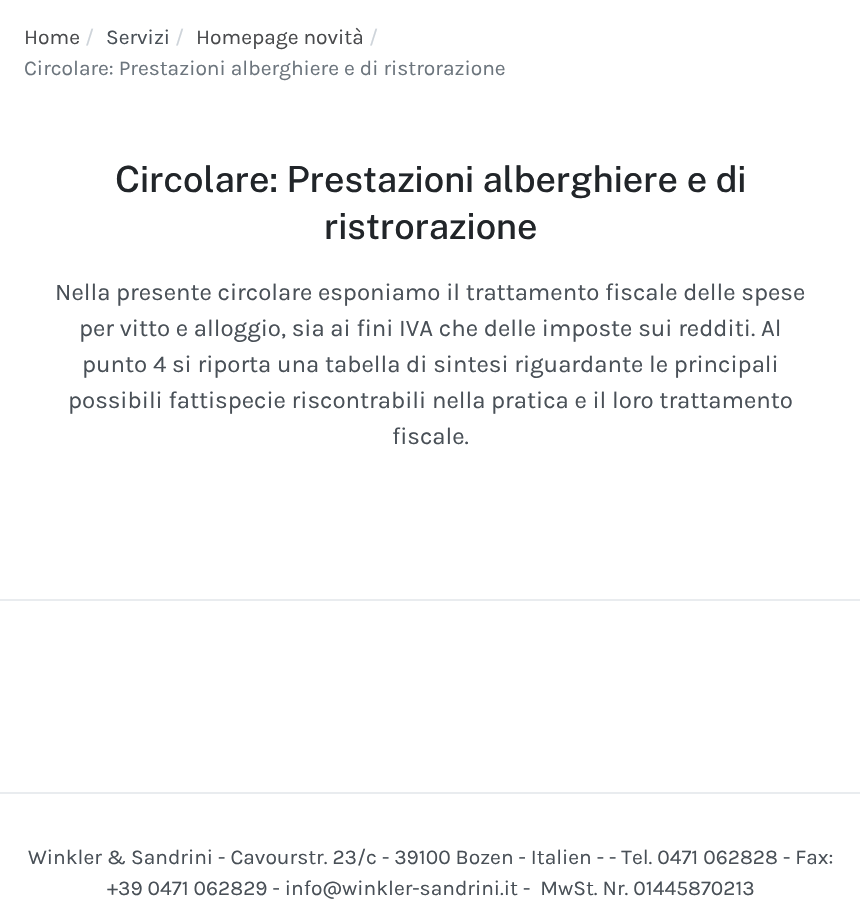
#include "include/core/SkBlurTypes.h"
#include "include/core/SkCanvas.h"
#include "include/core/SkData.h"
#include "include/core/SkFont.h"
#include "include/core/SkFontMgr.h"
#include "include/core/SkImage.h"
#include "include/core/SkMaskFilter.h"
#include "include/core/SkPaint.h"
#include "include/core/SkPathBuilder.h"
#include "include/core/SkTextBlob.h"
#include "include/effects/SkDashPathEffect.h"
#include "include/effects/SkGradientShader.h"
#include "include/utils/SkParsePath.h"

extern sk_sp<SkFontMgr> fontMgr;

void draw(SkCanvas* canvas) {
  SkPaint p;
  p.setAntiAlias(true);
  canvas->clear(SK_ColorWHITE);
  p.setColor(SkColorSetRGB(233, 236, 239));
  canvas->drawRect(SkRect::MakeLTRB(0, 599, 860, 601), p);
  canvas->drawRect(SkRect::MakeLTRB(0, 792, 860, 794), p);
  SkFont font1(fontMgr->matchFamilyStyle("Karla", SkFontStyle::Normal()), 21);
  font1.setSubpixel(true);
  p.setColor(SkColorSetRGB(73, 74, 76));
  canvas->drawString("Home", 24, 44, font1, p);
  p.setColor(SkColorSetRGB(206, 212, 218));
  canvas->drawString("/", 85, 44, font1, p);
  p.setColor(SkColorSetRGB(73, 80, 87));
  canvas->drawString("Servizi", 106, 44, font1, p);
  p.setColor(SkColorSetRGB(206, 212, 218));
  canvas->drawString("/", 175, 44, font1, p);
  p.setColor(SkColorSetRGB(73, 74, 76));
  canvas->drawString("Homepage novità", 196, 44, font1, p);
  p.setColor(SkColorSetRGB(206, 212, 218));
  canvas->drawString("/", 369, 44, font1, p);
  p.setColor(SkColorSetRGB(108, 117, 125));
  canvas->drawString("Circolare: Prestazioni alberghiere e di ristrorazione", 24, 75, font1, p);
  SkFont font2(fontMgr->matchFamilyStyle("Public Sans", SkFontStyle(500, SkFontStyle::kNormal_Width, SkFontStyle::kUpright_Slant)), 36);
  font2.setSubpixel(true);
  p.setColor(SkColorSetRGB(33, 37, 41));
  canvas->drawString("Circolare: Prestazioni alberghiere e di", 115, 192, font2, p);
  canvas->drawString("ristrorazione", 324, 239, font2, p);
  SkFont font3(fontMgr->matchFamilyStyle("Karla", SkFontStyle::Normal()), 24);
  font3.setSubpixel(true);
  p.setColor(SkColorSetRGB(73, 80, 87));
  canvas->drawString("Nella presente circolare esponiamo il trattamento fiscale delle spese", 55, 300, font3, p);
  canvas->drawString("per vitto e alloggio, sia ai fini IVA che delle imposte sui redditi. Al", 79, 336, font3, p);
  canvas->drawString("punto 4 si riporta una tabella di sintesi riguardante le principali", 82, 372, font3, p);
  canvas->drawString("possibili fattispecie riscontrabili nella pratica e il loro trattamento", 68, 408, font3, p);
  canvas->drawString("fiscale.", 392, 444, font3, p);
  canvas->drawString("Winkler & Sandrini - Cavourstr. 23/c - 39100 Bozen - Italien - - Tel. 0471 062828 - Fax:", 28, 864, font1, p);
  canvas->drawString("+39 0471 062829 - info@winkler-sandrini.it -  MwSt. Nr. 01445870213", 107, 895, font1, p);
}
